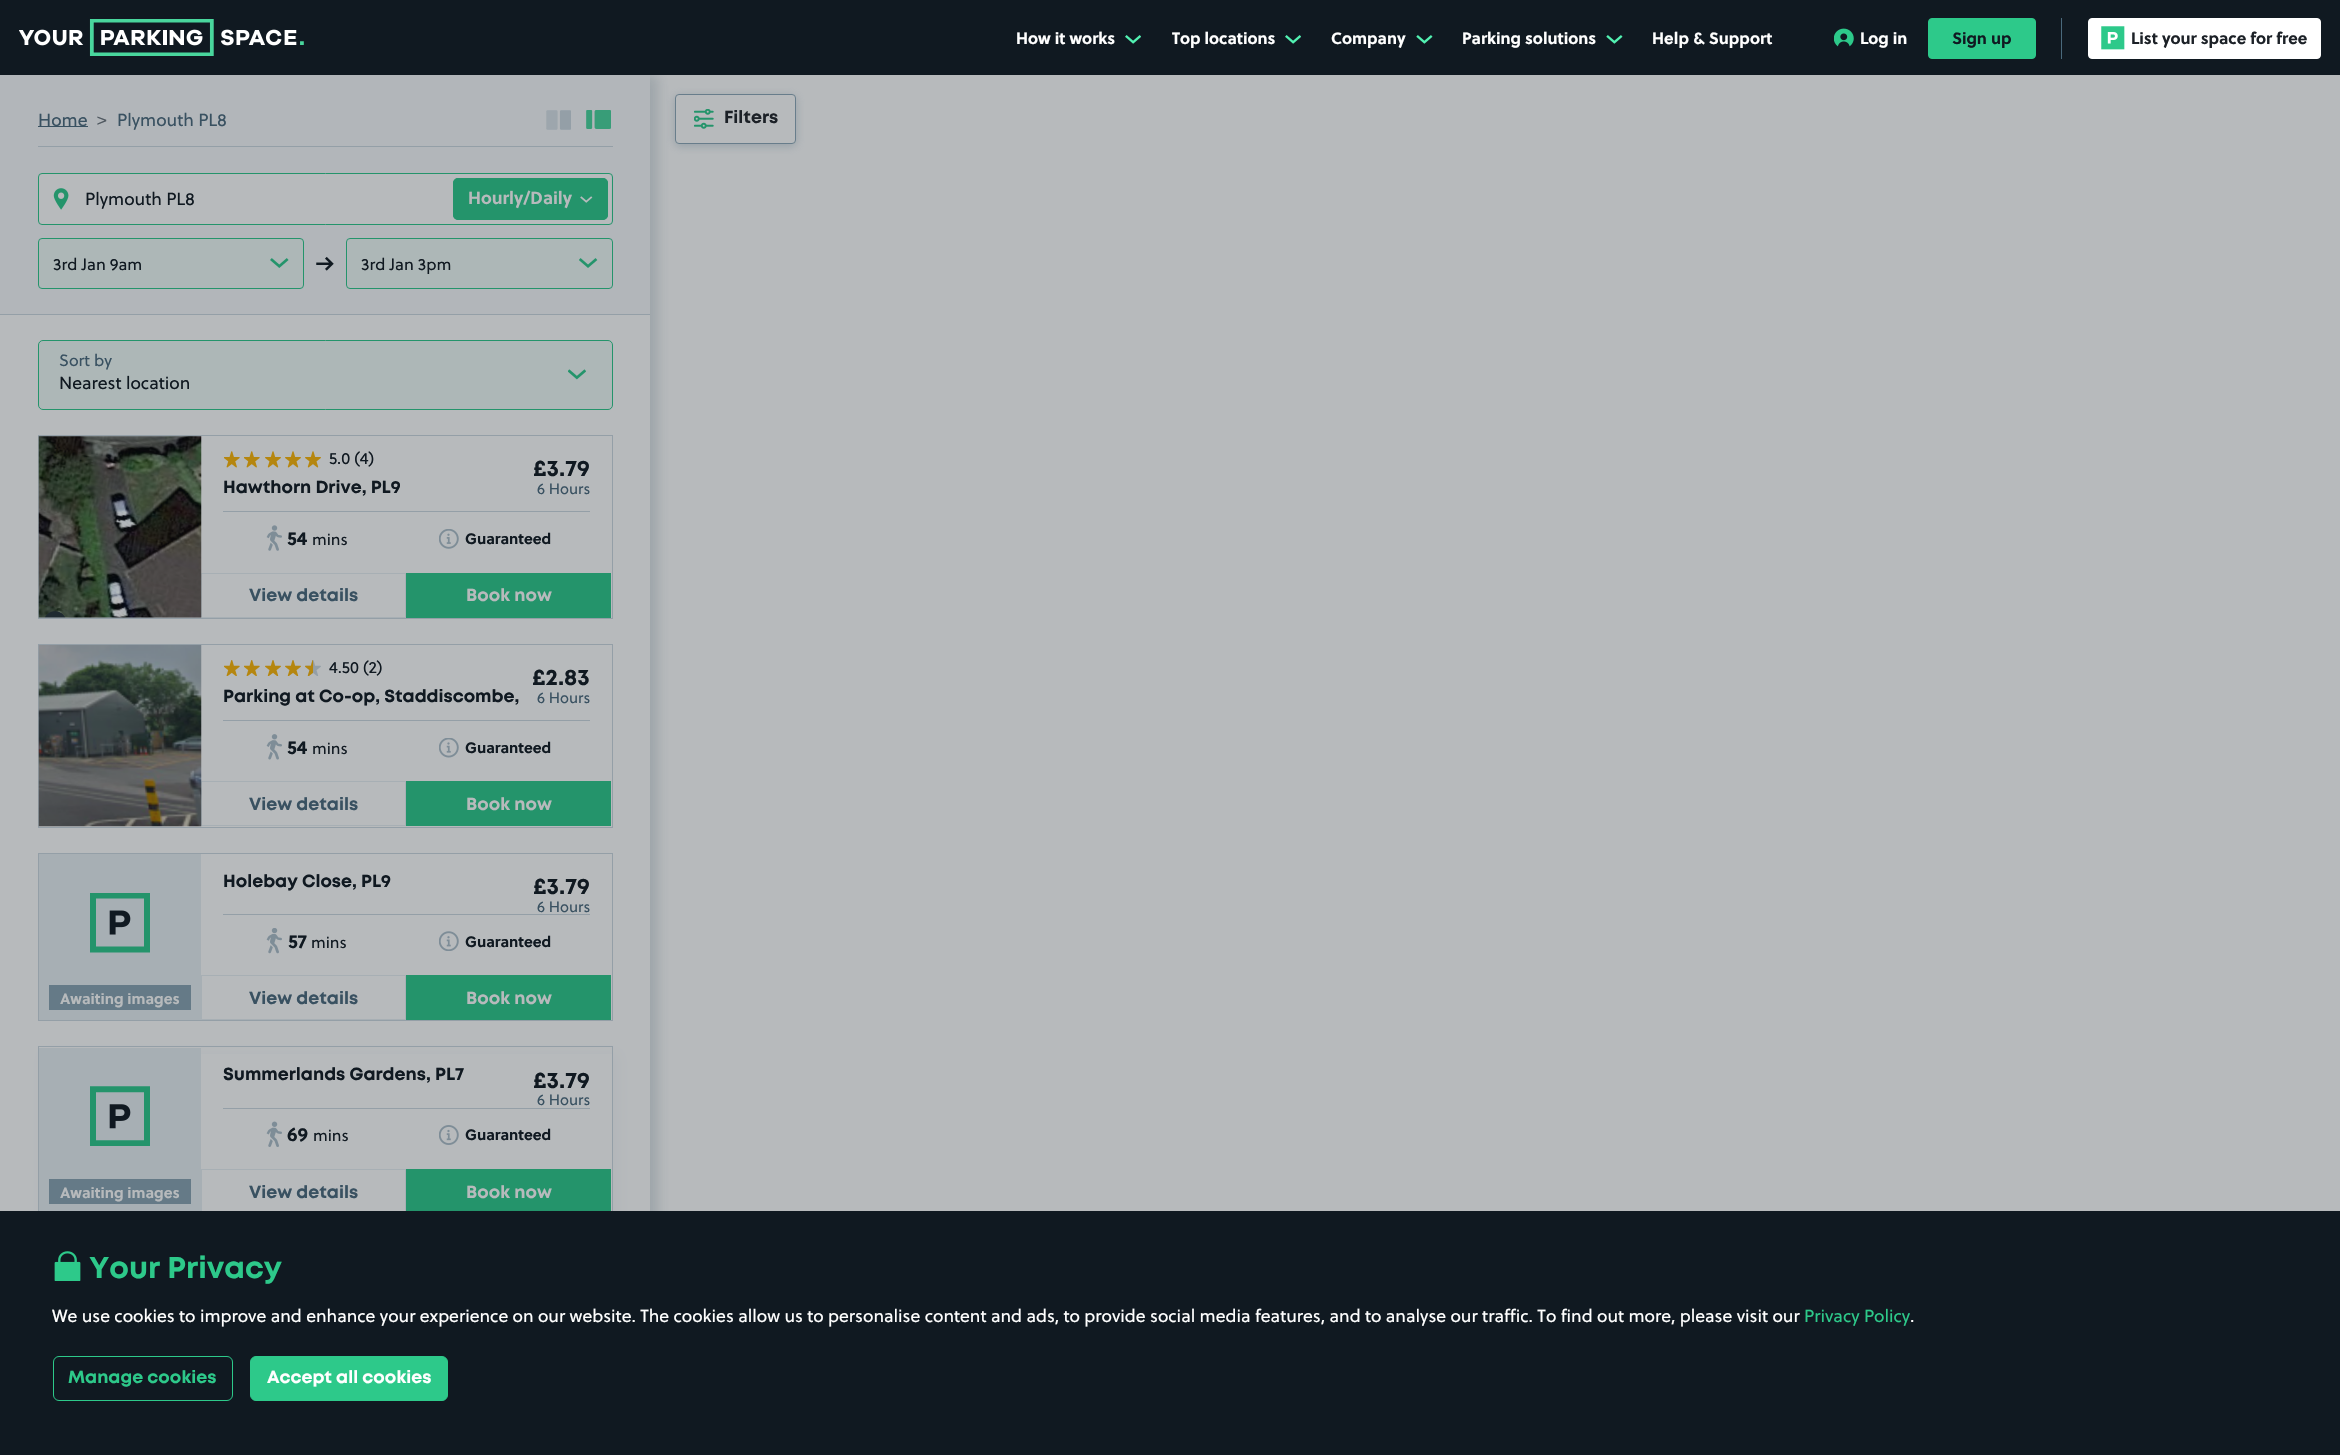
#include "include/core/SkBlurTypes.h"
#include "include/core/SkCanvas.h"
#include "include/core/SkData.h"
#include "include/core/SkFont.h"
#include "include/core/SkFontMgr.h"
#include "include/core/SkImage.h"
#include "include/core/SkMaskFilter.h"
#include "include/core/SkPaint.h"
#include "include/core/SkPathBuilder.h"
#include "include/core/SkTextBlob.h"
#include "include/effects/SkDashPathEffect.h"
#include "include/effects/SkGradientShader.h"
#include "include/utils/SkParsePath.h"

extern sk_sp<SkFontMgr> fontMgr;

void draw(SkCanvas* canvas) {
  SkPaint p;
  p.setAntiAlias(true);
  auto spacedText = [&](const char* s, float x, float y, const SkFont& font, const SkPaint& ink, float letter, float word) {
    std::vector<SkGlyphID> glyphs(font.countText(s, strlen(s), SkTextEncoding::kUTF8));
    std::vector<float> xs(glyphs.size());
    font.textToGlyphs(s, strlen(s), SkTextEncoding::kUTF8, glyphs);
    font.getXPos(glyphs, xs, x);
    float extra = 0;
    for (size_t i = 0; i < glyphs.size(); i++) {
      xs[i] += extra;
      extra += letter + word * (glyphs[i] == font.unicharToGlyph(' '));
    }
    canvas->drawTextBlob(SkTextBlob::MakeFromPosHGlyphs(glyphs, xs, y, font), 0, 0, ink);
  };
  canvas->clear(SkColorSetRGB(183, 186, 188));
  p.setColor(SkColorSetARGB(107, 101, 122, 135));
  p.setMaskFilter(SkMaskFilter::MakeBlur(kNormal_SkBlurStyle, 5));
  canvas->drawRoundRect(SkRect::MakeLTRB(675, 96, 796, 146), 4, 4, p);
  p.setMaskFilter(nullptr);
  p.setColor(SkColorSetRGB(183, 186, 188));
  canvas->drawRoundRect(SkRect::MakeLTRB(675.5f, 94.5f, 795.5f, 143.5f), 3.5f, 3.5f, p);
  p.setStyle(SkPaint::kStroke_Style);
  p.setStrokeWidth(1);
  p.setColor(SkColorSetRGB(104, 125, 139));
  canvas->drawRoundRect(SkRect::MakeLTRB(675.5f, 94.5f, 795.5f, 143.5f), 3.5f, 3.5f, p);
  p.setStyle(SkPaint::kFill_Style);
  p.setColor(SkColorSetARGB(51, 57, 81, 97));
  p.setMaskFilter(SkMaskFilter::MakeBlur(kNormal_SkBlurStyle, 6));
  canvas->drawRect(SkRect::MakeLTRB(8, 75, 658, 1388), p);
  p.setMaskFilter(nullptr);
  p.setColor(SkColorSetRGB(16, 25, 33));
  canvas->drawRect(SkRect::MakeLTRB(0, 0, 2340, 75), p);
  canvas->drawImageRect(SkImages::DeferredFromEncodedData(SkData::MakeFromFileName("images/1.png")), SkRect::MakeLTRB(19, 19, 304, 56), SkSamplingOptions());
  canvas->drawImageRect(SkImages::DeferredFromEncodedData(SkData::MakeFromFileName("images/2.png")), SkRect::MakeLTRB(1125, 35, 1141, 44), SkSamplingOptions());
  canvas->drawImageRect(SkImages::DeferredFromEncodedData(SkData::MakeFromFileName("images/2.png")), SkRect::MakeLTRB(1285, 35, 1301, 44), SkSamplingOptions());
  canvas->drawImageRect(SkImages::DeferredFromEncodedData(SkData::MakeFromFileName("images/3.png")), SkRect::MakeLTRB(1416, 35, 1433, 44), SkSamplingOptions());
  canvas->drawImageRect(SkImages::DeferredFromEncodedData(SkData::MakeFromFileName("images/3.png")), SkRect::MakeLTRB(1606, 35, 1623, 44), SkSamplingOptions());
  canvas->drawImageRect(SkImages::DeferredFromEncodedData(SkData::MakeFromFileName("images/4.png")), SkRect::MakeLTRB(1834, 28, 1854, 47), SkSamplingOptions());
  p.setColor(SkColorSetRGB(45, 201, 138));
  canvas->drawRoundRect(SkRect::MakeLTRB(1928.5f, 18.5f, 2035.5f, 58.5f), 3.5f, 3.5f, p);
  p.setStyle(SkPaint::kStroke_Style);
  canvas->drawRoundRect(SkRect::MakeLTRB(1928.5f, 18.5f, 2035.5f, 58.5f), 3.5f, 3.5f, p);
  p.setStyle(SkPaint::kFill_Style);
  p.setColor(SkColorSetRGB(74, 105, 124));
  canvas->drawRect(SkRect::MakeLTRB(2061, 18, 2062, 59), p);
  p.setColor(SK_ColorWHITE);
  canvas->drawRoundRect(SkRect::MakeLTRB(2088.5f, 18.5f, 2320.5f, 58.5f), 3.5f, 3.5f, p);
  p.setStyle(SkPaint::kStroke_Style);
  canvas->drawRoundRect(SkRect::MakeLTRB(2088.5f, 18.5f, 2320.5f, 58.5f), 3.5f, 3.5f, p);
  canvas->drawImageRect(SkImages::DeferredFromEncodedData(SkData::MakeFromFileName("images/5.png")), SkRect::MakeLTRB(2101, 26, 2125, 50), SkSamplingOptions());
  p.setStyle(SkPaint::kFill_Style);
  p.setColor(SkColorSetRGB(183, 186, 188));
  canvas->drawRect(SkRect::MakeLTRB(0, 315, 650, 1211), p);
  p.setColor(SkColorSetRGB(178, 182, 186));
  canvas->drawRect(SkRect::MakeLTRB(0, 75, 650, 314), p);
  p.setColor(SkColorSetRGB(148, 159, 167));
  canvas->drawRect(SkRect::MakeLTRB(0, 314, 650, 315), p);
  canvas->drawRect(SkRect::MakeLTRB(38, 146, 613, 147), p);
  p.setColor(SkColorSetRGB(57, 81, 97));
  canvas->drawRect(SkRect::MakeLTRB(38, 126, 88, 127), p);
  canvas->drawImageRect(SkImages::DeferredFromEncodedData(SkData::MakeFromFileName("images/6.png")), SkRect::MakeLTRB(546, 110, 571, 130), SkSamplingOptions());
  canvas->drawImageRect(SkImages::DeferredFromEncodedData(SkData::MakeFromFileName("images/7.png")), SkRect::MakeLTRB(586, 110, 611, 129), SkSamplingOptions());
  p.setColor(SkColorSetRGB(183, 186, 188));
  canvas->drawRoundRect(SkRect::MakeLTRB(39, 174, 611, 224), 2.5f, 2.5f, p);
  p.setStyle(SkPaint::kStroke_Style);
  p.setColor(SkColorSetRGB(36, 148, 107));
  canvas->drawRoundRect(SkRect::MakeLTRB(38.5f, 173.5f, 612.5f, 224.5f), 3.5f, 3.5f, p);
  canvas->drawImageRect(SkImages::DeferredFromEncodedData(SkData::MakeFromFileName("images/8.png")), SkRect::MakeLTRB(53, 188, 69, 210), SkSamplingOptions());
  p.setStyle(SkPaint::kFill_Style);
  canvas->drawRoundRect(SkRect::MakeLTRB(453, 178, 608, 220), 5, 5, p);
  canvas->drawImageRect(SkImages::DeferredFromEncodedData(SkData::MakeFromFileName("images/9.png")), SkRect::MakeLTRB(580, 196, 593, 203), SkSamplingOptions());
  p.setStyle(SkPaint::kStroke_Style);
  canvas->drawRoundRect(SkRect::MakeLTRB(453.5f, 178.5f, 607.5f, 219.5f), 4.5f, 4.5f, p);
  p.setStyle(SkPaint::kFill_Style);
  p.setColor(SkColorSetRGB(173, 183, 183));
  canvas->drawRoundRect(SkRect::MakeLTRB(39, 239, 303, 288), 2.5f, 2.5f, p);
  p.setStyle(SkPaint::kStroke_Style);
  p.setColor(SkColorSetRGB(36, 148, 107));
  canvas->drawRoundRect(SkRect::MakeLTRB(38.5f, 238.5f, 303.5f, 288.5f), 3.5f, 3.5f, p);
  canvas->drawImageRect(SkImages::DeferredFromEncodedData(SkData::MakeFromFileName("images/10.png")), SkRect::MakeLTRB(270, 258, 289, 268), SkSamplingOptions());
  canvas->drawImageRect(SkImages::DeferredFromEncodedData(SkData::MakeFromFileName("images/11.png")), SkRect::MakeLTRB(316, 256, 334, 271), SkSamplingOptions());
  p.setStyle(SkPaint::kFill_Style);
  p.setColor(SkColorSetRGB(173, 183, 183));
  canvas->drawRoundRect(SkRect::MakeLTRB(348, 239, 611, 288), 2.5f, 2.5f, p);
  p.setStyle(SkPaint::kStroke_Style);
  p.setColor(SkColorSetRGB(36, 148, 107));
  canvas->drawRoundRect(SkRect::MakeLTRB(346.5f, 238.5f, 612.5f, 288.5f), 3.5f, 3.5f, p);
  canvas->drawImageRect(SkImages::DeferredFromEncodedData(SkData::MakeFromFileName("images/12.png")), SkRect::MakeLTRB(579, 258, 598, 268), SkSamplingOptions());
  p.setStyle(SkPaint::kFill_Style);
  p.setColor(SkColorSetRGB(173, 183, 183));
  canvas->drawRoundRect(SkRect::MakeLTRB(38, 340, 613, 410), 5, 5, p);
  canvas->drawImageRect(SkImages::DeferredFromEncodedData(SkData::MakeFromFileName("images/13.png")), SkRect::MakeLTRB(568, 369, 586, 380), SkSamplingOptions());
  p.setStyle(SkPaint::kStroke_Style);
  p.setColor(SkColorSetRGB(36, 148, 107));
  canvas->drawRoundRect(SkRect::MakeLTRB(38.5f, 340.5f, 612.5f, 409.5f), 4.5f, 4.5f, p);
  p.setColor(SkColorSetRGB(148, 159, 167));
  canvas->drawRect(SkRect::MakeLTRB(38.5f, 435.5f, 612.5f, 618.5f), p);
  p.setStyle(SkPaint::kFill_Style);
  p.setColor(SkColorSetRGB(167, 175, 180));
  canvas->drawRect(SkRect::MakeLTRB(39, 436, 201, 618), p);
  p.setStyle(SkPaint::kStroke_Style);
  canvas->drawRect(SkRect::MakeLTRB(201.5f, 573.5f, 405.5f, 617.5f), p);
  canvas->drawImageRect(SkImages::DeferredFromEncodedData(SkData::MakeFromFileName("images/14.png")), SkRect::MakeLTRB(38, 436, 202, 618), SkSamplingOptions());
  canvas->drawImageRect(SkImages::DeferredFromEncodedData(SkData::MakeFromFileName("images/15.png")), SkRect::MakeLTRB(224, 451, 240, 468), SkSamplingOptions());
  canvas->drawImageRect(SkImages::DeferredFromEncodedData(SkData::MakeFromFileName("images/15.png")), SkRect::MakeLTRB(244, 451, 260, 468), SkSamplingOptions());
  canvas->drawImageRect(SkImages::DeferredFromEncodedData(SkData::MakeFromFileName("images/16.png")), SkRect::MakeLTRB(265, 451, 281, 468), SkSamplingOptions());
  canvas->drawImageRect(SkImages::DeferredFromEncodedData(SkData::MakeFromFileName("images/16.png")), SkRect::MakeLTRB(285, 451, 301, 468), SkSamplingOptions());
  canvas->drawImageRect(SkImages::DeferredFromEncodedData(SkData::MakeFromFileName("images/16.png")), SkRect::MakeLTRB(305, 451, 321, 468), SkSamplingOptions());
  p.setStyle(SkPaint::kFill_Style);
  p.setColor(SkColorSetRGB(148, 159, 167));
  canvas->drawRect(SkRect::MakeLTRB(223, 511, 590, 512), p);
  canvas->drawImageRect(SkImages::DeferredFromEncodedData(SkData::MakeFromFileName("images/17.png")), SkRect::MakeLTRB(266, 525, 282, 551), SkSamplingOptions());
  canvas->drawImageRect(SkImages::DeferredFromEncodedData(SkData::MakeFromFileName("images/18.png")), SkRect::MakeLTRB(439, 529, 459, 549), SkSamplingOptions());
  p.setColor(SkColorSetRGB(36, 148, 107));
  canvas->drawRect(SkRect::MakeLTRB(406, 573, 611, 618), p);
  p.setStyle(SkPaint::kStroke_Style);
  p.setColor(SkColorSetRGB(148, 159, 167));
  canvas->drawRect(SkRect::MakeLTRB(38.5f, 644.5f, 612.5f, 827.5f), p);
  p.setColor(SkColorSetRGB(167, 175, 180));
  canvas->drawRect(SkRect::MakeLTRB(201.5f, 781.5f, 405.5f, 825.5f), p);
  canvas->drawImageRect(SkImages::DeferredFromEncodedData(SkData::MakeFromFileName("images/19.png")), SkRect::MakeLTRB(38, 645, 202, 827), SkSamplingOptions());
  canvas->drawImageRect(SkImages::DeferredFromEncodedData(SkData::MakeFromFileName("images/20.png")), SkRect::MakeLTRB(224, 660, 240, 676), SkSamplingOptions());
  canvas->drawImageRect(SkImages::DeferredFromEncodedData(SkData::MakeFromFileName("images/20.png")), SkRect::MakeLTRB(244, 660, 260, 676), SkSamplingOptions());
  canvas->drawImageRect(SkImages::DeferredFromEncodedData(SkData::MakeFromFileName("images/21.png")), SkRect::MakeLTRB(265, 660, 281, 676), SkSamplingOptions());
  canvas->drawImageRect(SkImages::DeferredFromEncodedData(SkData::MakeFromFileName("images/21.png")), SkRect::MakeLTRB(285, 660, 301, 676), SkSamplingOptions());
  canvas->drawImageRect(SkImages::DeferredFromEncodedData(SkData::MakeFromFileName("images/22.png")), SkRect::MakeLTRB(305, 660, 321, 676), SkSamplingOptions());
  p.setStyle(SkPaint::kFill_Style);
  p.setColor(SkColorSetRGB(148, 159, 167));
  canvas->drawRect(SkRect::MakeLTRB(223, 720, 590, 721), p);
  canvas->drawImageRect(SkImages::DeferredFromEncodedData(SkData::MakeFromFileName("images/23.png")), SkRect::MakeLTRB(266, 734, 282, 760), SkSamplingOptions());
  canvas->drawImageRect(SkImages::DeferredFromEncodedData(SkData::MakeFromFileName("images/24.png")), SkRect::MakeLTRB(439, 738, 459, 758), SkSamplingOptions());
  p.setColor(SkColorSetRGB(36, 148, 107));
  canvas->drawRect(SkRect::MakeLTRB(406, 781, 611, 826), p);
  p.setStyle(SkPaint::kStroke_Style);
  p.setColor(SkColorSetRGB(148, 159, 167));
  canvas->drawRect(SkRect::MakeLTRB(38.5f, 853.5f, 612.5f, 1020.5f), p);
  p.setStyle(SkPaint::kFill_Style);
  p.setColor(SkColorSetRGB(167, 175, 180));
  canvas->drawRect(SkRect::MakeLTRB(39, 854, 201, 1020), p);
  canvas->drawImageRect(SkImages::DeferredFromEncodedData(SkData::MakeFromFileName("images/25.png")), SkRect::MakeLTRB(90, 893, 150, 953), SkSamplingOptions());
  p.setColor(SkColorSetRGB(101, 122, 135));
  canvas->drawRect(SkRect::MakeLTRB(49, 985, 191, 1010), p);
  p.setColor(SkColorSetRGB(148, 159, 167));
  canvas->drawRect(SkRect::MakeLTRB(223, 914, 590, 915), p);
  canvas->drawImageRect(SkImages::DeferredFromEncodedData(SkData::MakeFromFileName("images/26.png")), SkRect::MakeLTRB(266, 928, 282, 954), SkSamplingOptions());
  canvas->drawImageRect(SkImages::DeferredFromEncodedData(SkData::MakeFromFileName("images/27.png")), SkRect::MakeLTRB(439, 931, 459, 951), SkSamplingOptions());
  p.setStyle(SkPaint::kStroke_Style);
  p.setColor(SkColorSetRGB(167, 175, 180));
  canvas->drawRect(SkRect::MakeLTRB(201.5f, 975.5f, 405.5f, 1019.5f), p);
  p.setStyle(SkPaint::kFill_Style);
  p.setColor(SkColorSetRGB(36, 148, 107));
  canvas->drawRect(SkRect::MakeLTRB(406, 975, 611, 1020), p);
  p.setColor(SkColorSetRGB(178, 182, 186));
  p.setMaskFilter(SkMaskFilter::MakeBlur(kNormal_SkBlurStyle, 6));
  canvas->drawRect(SkRect::MakeLTRB(43, 1054, 618, 1223), p);
  p.setMaskFilter(nullptr);
  p.setColor(SkColorSetRGB(183, 186, 188));
  canvas->drawRect(SkRect::MakeLTRB(43, 1054, 612, 1211), p);
  p.setStyle(SkPaint::kStroke_Style);
  p.setColor(SkColorSetRGB(148, 159, 167));
  canvas->drawRect(SkRect::MakeLTRB(38.5f, 1046.5f, 612.5f, 1214.5f), p);
  p.setStyle(SkPaint::kFill_Style);
  p.setColor(SkColorSetRGB(167, 175, 180));
  canvas->drawRect(SkRect::MakeLTRB(39, 1048, 201, 1211), p);
  canvas->drawImageRect(SkImages::DeferredFromEncodedData(SkData::MakeFromFileName("images/28.png")), SkRect::MakeLTRB(90, 1086, 150, 1146), SkSamplingOptions());
  p.setColor(SkColorSetRGB(101, 122, 135));
  canvas->drawRect(SkRect::MakeLTRB(49, 1179, 191, 1204), p);
  p.setColor(SkColorSetRGB(148, 159, 167));
  canvas->drawRect(SkRect::MakeLTRB(223, 1108, 590, 1109), p);
  canvas->drawImageRect(SkImages::DeferredFromEncodedData(SkData::MakeFromFileName("images/29.png")), SkRect::MakeLTRB(266, 1121, 282, 1147), SkSamplingOptions());
  canvas->drawImageRect(SkImages::DeferredFromEncodedData(SkData::MakeFromFileName("images/30.png")), SkRect::MakeLTRB(439, 1125, 459, 1145), SkSamplingOptions());
  p.setStyle(SkPaint::kStroke_Style);
  p.setColor(SkColorSetRGB(167, 175, 180));
  canvas->drawRect(SkRect::MakeLTRB(201.5f, 1169.5f, 405.5f, 1213.5f), p);
  p.setStyle(SkPaint::kFill_Style);
  p.setColor(SkColorSetRGB(36, 148, 107));
  canvas->drawRect(SkRect::MakeLTRB(406, 1169, 611, 1211), p);
  canvas->drawImageRect(SkImages::DeferredFromEncodedData(SkData::MakeFromFileName("images/31.png")), SkRect::MakeLTRB(694, 109, 714, 129), SkSamplingOptions());
  p.setColor(SkColorSetRGB(16, 25, 33));
  canvas->drawRect(SkRect::MakeLTRB(0, 1211, 2340, 1455), p);
  canvas->drawImageRect(SkImages::DeferredFromEncodedData(SkData::MakeFromFileName("images/32.png")), SkRect::MakeLTRB(54, 1251, 81, 1281), SkSamplingOptions());
  p.setStyle(SkPaint::kStroke_Style);
  p.setColor(SkColorSetRGB(45, 201, 138));
  canvas->drawRoundRect(SkRect::MakeLTRB(53.5f, 1356.5f, 232.5f, 1400.5f), 5.5f, 5.5f, p);
  p.setStyle(SkPaint::kFill_Style);
  canvas->drawRoundRect(SkRect::MakeLTRB(250.5f, 1356.5f, 447.5f, 1400.5f), 5.5f, 5.5f, p);
  p.setStyle(SkPaint::kStroke_Style);
  canvas->drawRoundRect(SkRect::MakeLTRB(250.5f, 1356.5f, 447.5f, 1400.5f), 5.5f, 5.5f, p);
  SkFont font1(fontMgr->matchFamilyStyle("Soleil", SkFontStyle::Bold()), 16.25f);
  font1.setSubpixel(true);
  p.setStyle(SkPaint::kFill_Style);
  p.setColor(SK_ColorWHITE);
  canvas->drawString("How it works", 1016, 44, font1, p);
  canvas->drawString("Top locations", 1172, 44, font1, p);
  canvas->drawString("Company", 1331, 44, font1, p);
  canvas->drawString("Parking solutions", 1462, 44, font1, p);
  spacedText("Help & Support", 1652, 44, font1, p, 0.1f, 0);
  canvas->drawString("Log in", 1860, 44, font1, p);
  p.setColor(SkColorSetRGB(16, 25, 33));
  canvas->drawString("Sign up", 1952, 44, font1, p);
  p.setColor(SkColorSetRGB(28, 33, 39));
  canvas->drawString("List your space for free", 2131, 44, font1, p);
  SkFont font2(fontMgr->matchFamilyStyle("Soleil", SkFontStyle::Normal()), 17.5f);
  font2.setSubpixel(true);
  p.setColor(SkColorSetRGB(57, 81, 97));
  canvas->drawString("Home", 38, 126, font2, p);
  p.setColor(SkColorSetRGB(80, 89, 97));
  canvas->drawString(">", 97, 126, font2, p);
  p.setColor(SkColorSetRGB(57, 81, 97));
  canvas->drawString("Plymouth PL8", 117, 126, font2, p);
  p.setColor(SkColorSetRGB(16, 25, 33));
  canvas->drawString("Plymouth PL8", 85, 205, font2, p);
  SkFont font3(fontMgr->matchFamilyStyle("Soleil", SkFontStyle::Bold()), 17.5f);
  font3.setSubpixel(true);
  p.setColor(SkColorSetRGB(183, 186, 188));
  canvas->drawString("Hourly/Daily", 468, 204, font3, p);
  SkFont font4(fontMgr->matchFamilyStyle("Soleil", SkFontStyle::Normal()), 16.25f);
  font4.setSubpixel(true);
  p.setColor(SkColorSetRGB(16, 25, 33));
  canvas->drawString("3rd Jan 9am", 53, 270, font4, p);
  canvas->drawString("3rd Jan 3pm", 361, 270, font4, p);
  p.setColor(SkColorSetRGB(57, 81, 97));
  canvas->drawString("Sort by", 59, 366, font4, p);
  p.setColor(SkColorSetRGB(16, 25, 33));
  canvas->drawString("Nearest location", 59, 389, font2, p);
  canvas->drawString("5.0 (4)", 329, 464, font4, p);
  SkFont font5(fontMgr->matchFamilyStyle("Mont", SkFontStyle::Bold()), 17.5f);
  font5.setSubpixel(true);
  canvas->drawString("Hawthorn Drive, PL9", 223, 493, font5, p);
  SkFont font6(fontMgr->matchFamilyStyle("Mont", SkFontStyle::Bold()), 22.5f);
  font6.setSubpixel(true);
  canvas->drawString("£3.79", 533, 476, font6, p);
  SkFont font7(fontMgr->matchFamilyStyle("Soleil", SkFontStyle::Normal()), 15);
  font7.setSubpixel(true);
  p.setColor(SkColorSetRGB(57, 81, 97));
  canvas->drawString("6 Hours", 537, 494, font7, p);
  SkFont font8(fontMgr->matchFamilyStyle("Soleil", SkFontStyle::Bold()), 19);
  font8.setSubpixel(true);
  p.setColor(SkColorSetRGB(16, 25, 33));
  canvas->drawString("54", 287, 545, font8, p);
  SkFont font9(fontMgr->matchFamilyStyle("Soleil", SkFontStyle::Normal()), 16);
  font9.setSubpixel(true);
  canvas->drawString("mins", 312, 545, font9, p);
  SkFont font10(fontMgr->matchFamilyStyle("Soleil", SkFontStyle::Bold()), 15);
  font10.setSubpixel(true);
  canvas->drawString("Guaranteed", 465, 544, font10, p);
  p.setColor(SkColorSetRGB(57, 81, 97));
  canvas->drawString("View details", 249, 601, font5, p);
  p.setColor(SkColorSetRGB(183, 186, 188));
  canvas->drawString("Book now", 466, 601, font5, p);
  p.setColor(SkColorSetRGB(16, 25, 33));
  canvas->drawString("4.50 (2)", 329, 673, font4, p);
  canvas->drawString("Parking at Co-op, Staddiscombe,", 223, 702, font5, p);
  canvas->drawString("£2.83", 532, 685, font6, p);
  p.setColor(SkColorSetRGB(57, 81, 97));
  canvas->drawString("6 Hours", 537, 703, font7, p);
  p.setColor(SkColorSetRGB(16, 25, 33));
  canvas->drawString("54", 287, 754, font8, p);
  canvas->drawString("mins", 312, 754, font9, p);
  canvas->drawString("Guaranteed", 465, 753, font10, p);
  p.setColor(SkColorSetRGB(57, 81, 97));
  canvas->drawString("View details", 249, 810, font5, p);
  p.setColor(SkColorSetRGB(183, 186, 188));
  canvas->drawString("Book now", 466, 810, font5, p);
  canvas->drawString("Awaiting images", 60, 1004, font10, p);
  p.setColor(SkColorSetRGB(16, 25, 33));
  canvas->drawString("Holebay Close, PL9", 223, 887, font5, p);
  canvas->drawString("£3.79", 533, 894, font6, p);
  p.setColor(SkColorSetRGB(57, 81, 97));
  canvas->drawString("6 Hours", 537, 912, font7, p);
  p.setColor(SkColorSetRGB(16, 25, 33));
  canvas->drawString("57", 288, 948, font8, p);
  canvas->drawString("mins", 311, 948, font9, p);
  canvas->drawString("Guaranteed", 465, 947, font10, p);
  p.setColor(SkColorSetRGB(57, 81, 97));
  canvas->drawString("View details", 249, 1004, font5, p);
  p.setColor(SkColorSetRGB(183, 186, 188));
  canvas->drawString("Book now", 466, 1004, font5, p);
  canvas->drawString("Awaiting images", 60, 1198, font10, p);
  p.setColor(SkColorSetRGB(16, 25, 33));
  canvas->drawString("Summerlands Gardens, PL7", 223, 1080, font5, p);
  canvas->drawString("£3.79", 533, 1088, font6, p);
  p.setColor(SkColorSetRGB(57, 81, 97));
  canvas->drawString("6 Hours", 537, 1105, font7, p);
  p.setColor(SkColorSetRGB(16, 25, 33));
  canvas->drawString("69", 287, 1141, font8, p);
  canvas->drawString("mins", 313, 1141, font9, p);
  canvas->drawString("Guaranteed", 465, 1140, font10, p);
  p.setColor(SkColorSetRGB(57, 81, 97));
  canvas->drawString("View details", 249, 1198, font5, p);
  p.setColor(SkColorSetRGB(183, 186, 188));
  canvas->drawString("Book now", 466, 1198, font5, p);
  p.setColor(SkColorSetRGB(28, 33, 39));
  canvas->drawString("Filters", 724, 123, font5, p);
  SkFont font11(fontMgr->matchFamilyStyle("Mont", SkFontStyle::Bold()), 30);
  font11.setSubpixel(true);
  p.setColor(SkColorSetRGB(45, 201, 138));
  canvas->drawString("Your Privacy", 89, 1278, font11, p);
  p.setColor(SK_ColorWHITE);
  canvas->drawString("We use cookies to improve and enhance your experience on our website. The cookies allow us to personalise content and ads, to provide social media features, and to analyse our traffic. To find out more, please visit our", 52, 1322, font2, p);
  p.setColor(SkColorSetRGB(45, 201, 138));
  canvas->drawString("Privacy Policy", 1804, 1322, font2, p);
  p.setColor(SK_ColorWHITE);
  canvas->drawString(".", 1910, 1322, font2, p);
  p.setColor(SkColorSetRGB(45, 201, 138));
  canvas->drawString("Manage cookies", 68, 1383, font5, p);
  p.setColor(SK_ColorWHITE);
  canvas->drawString("Accept all cookies", 267, 1383, font5, p);
}
